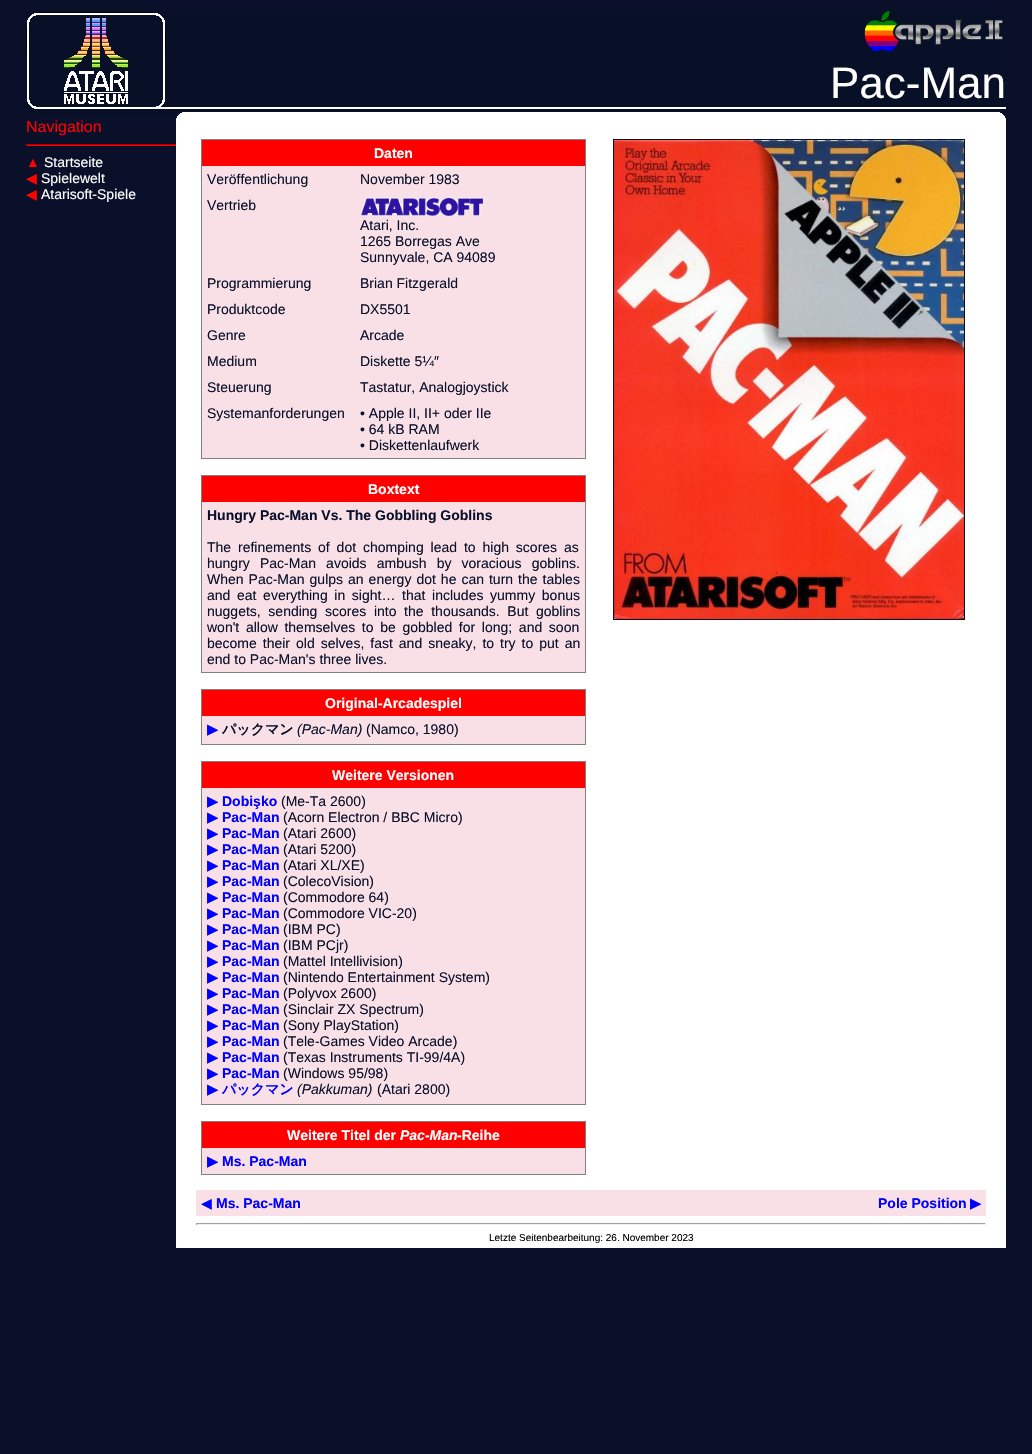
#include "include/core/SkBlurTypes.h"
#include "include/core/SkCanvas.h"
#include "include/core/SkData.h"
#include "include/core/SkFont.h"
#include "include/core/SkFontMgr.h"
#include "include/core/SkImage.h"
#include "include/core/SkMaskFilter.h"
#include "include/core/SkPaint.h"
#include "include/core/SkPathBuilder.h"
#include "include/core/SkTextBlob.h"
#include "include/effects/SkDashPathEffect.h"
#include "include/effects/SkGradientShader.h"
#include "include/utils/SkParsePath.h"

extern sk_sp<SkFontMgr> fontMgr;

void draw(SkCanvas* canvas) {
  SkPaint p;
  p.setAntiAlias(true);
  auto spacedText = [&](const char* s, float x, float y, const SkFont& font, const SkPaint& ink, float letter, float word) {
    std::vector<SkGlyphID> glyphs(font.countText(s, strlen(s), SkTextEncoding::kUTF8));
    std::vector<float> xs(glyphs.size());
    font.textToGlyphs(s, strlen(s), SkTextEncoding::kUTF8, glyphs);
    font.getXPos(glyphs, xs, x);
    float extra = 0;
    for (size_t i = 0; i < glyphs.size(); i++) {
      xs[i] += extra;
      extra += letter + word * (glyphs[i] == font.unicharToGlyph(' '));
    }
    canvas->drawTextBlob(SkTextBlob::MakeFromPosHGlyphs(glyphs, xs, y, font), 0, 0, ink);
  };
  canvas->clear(SkColorSetRGB(10, 16, 42));
  canvas->drawImageRect(SkImages::DeferredFromEncodedData(SkData::MakeFromFileName("images/1.png")), SkRect::MakeLTRB(26, 12, 1006, 118), SkSamplingOptions());
  canvas->drawImageRect(SkImages::DeferredFromEncodedData(SkData::MakeFromFileName("images/2.png")), SkRect::MakeLTRB(864, 11, 1003, 52), SkSamplingOptions());
  p.setColor(SkColorSetRGB(170, 0, 0));
  canvas->drawRect(SkRect::MakeLTRB(26, 144, 176, 145), p);
  p.setColor(SkColorSetRGB(255, 0, 0));
  canvas->drawRect(SkRect::MakeLTRB(175, 144, 176, 146), p);
  canvas->drawRect(SkRect::MakeLTRB(26, 145, 176, 146), p);
  p.setColor(SkColorSetRGB(170, 0, 0));
  canvas->drawRect(SkRect::MakeLTRB(26, 144, 27, 146), p);
  p.setColor(SK_ColorWHITE);
  canvas->drawRect(SkRect::MakeLTRB(176, 118, 1006, 1248), p);
  p.setColor(SkColorSetRGB(128, 128, 128));
  canvas->drawRect(SkRect::MakeLTRB(201, 139, 586, 140), p);
  canvas->drawRect(SkRect::MakeLTRB(585, 139, 586, 459), p);
  canvas->drawRect(SkRect::MakeLTRB(201, 458, 586, 459), p);
  canvas->drawRect(SkRect::MakeLTRB(201, 139, 202, 459), p);
  p.setColor(SkColorSetRGB(255, 0, 0));
  canvas->drawRect(SkRect::MakeLTRB(202, 140, 585, 166), p);
  p.setColor(SkColorSetRGB(248, 224, 230));
  canvas->drawRect(SkRect::MakeLTRB(202, 166, 585, 458), p);
  canvas->drawImageRect(SkImages::DeferredFromEncodedData(SkData::MakeFromFileName("images/3.png")), SkRect::MakeLTRB(360, 197, 484, 217), SkSamplingOptions());
  canvas->drawRect(SkRect::MakeLTRB(202, 502, 585, 672), p);
  p.setColor(SkColorSetRGB(128, 128, 128));
  canvas->drawRect(SkRect::MakeLTRB(201, 475, 586, 476), p);
  canvas->drawRect(SkRect::MakeLTRB(585, 475, 586, 673), p);
  canvas->drawRect(SkRect::MakeLTRB(201, 672, 586, 673), p);
  canvas->drawRect(SkRect::MakeLTRB(201, 475, 202, 673), p);
  p.setColor(SkColorSetRGB(255, 0, 0));
  canvas->drawRect(SkRect::MakeLTRB(202, 476, 585, 502), p);
  p.setColor(SkColorSetRGB(248, 224, 230));
  canvas->drawRect(SkRect::MakeLTRB(202, 716, 585, 744), p);
  p.setColor(SkColorSetRGB(128, 128, 128));
  canvas->drawRect(SkRect::MakeLTRB(201, 689, 586, 690), p);
  canvas->drawRect(SkRect::MakeLTRB(585, 689, 586, 745), p);
  canvas->drawRect(SkRect::MakeLTRB(201, 744, 586, 745), p);
  canvas->drawRect(SkRect::MakeLTRB(201, 689, 202, 745), p);
  p.setColor(SkColorSetRGB(255, 0, 0));
  canvas->drawRect(SkRect::MakeLTRB(202, 690, 585, 716), p);
  p.setColor(SkColorSetRGB(248, 224, 230));
  canvas->drawRect(SkRect::MakeLTRB(202, 788, 585, 1104), p);
  p.setColor(SkColorSetRGB(128, 128, 128));
  canvas->drawRect(SkRect::MakeLTRB(201, 761, 586, 762), p);
  canvas->drawRect(SkRect::MakeLTRB(585, 761, 586, 1105), p);
  canvas->drawRect(SkRect::MakeLTRB(201, 1104, 586, 1105), p);
  canvas->drawRect(SkRect::MakeLTRB(201, 761, 202, 1105), p);
  p.setColor(SkColorSetRGB(255, 0, 0));
  canvas->drawRect(SkRect::MakeLTRB(202, 762, 585, 788), p);
  p.setColor(SkColorSetRGB(248, 224, 230));
  canvas->drawRect(SkRect::MakeLTRB(202, 1148, 585, 1174), p);
  p.setColor(SkColorSetRGB(128, 128, 128));
  canvas->drawRect(SkRect::MakeLTRB(201, 1121, 586, 1122), p);
  canvas->drawRect(SkRect::MakeLTRB(585, 1121, 586, 1175), p);
  canvas->drawRect(SkRect::MakeLTRB(201, 1174, 586, 1175), p);
  canvas->drawRect(SkRect::MakeLTRB(201, 1121, 202, 1175), p);
  p.setColor(SkColorSetRGB(255, 0, 0));
  canvas->drawRect(SkRect::MakeLTRB(202, 1122, 585, 1148), p);
  p.setStyle(SkPaint::kStroke_Style);
  p.setStrokeWidth(1);
  p.setColor(SkColorSetRGB(10, 16, 42));
  canvas->drawRect(SkRect::MakeLTRB(613.5f, 139.5f, 964.5f, 619.5f), p);
  canvas->drawImageRect(SkImages::DeferredFromEncodedData(SkData::MakeFromFileName("images/4.png")), SkRect::MakeLTRB(614, 140, 964, 619), SkSamplingOptions());
  p.setStyle(SkPaint::kFill_Style);
  p.setColor(SkColorSetRGB(248, 224, 230));
  canvas->drawRect(SkRect::MakeLTRB(196, 1190, 986, 1216), p);
  p.setColor(SkColorSetRGB(159, 159, 159));
  canvas->drawRect(SkRect::MakeLTRB(196, 1223, 986, 1224), p);
  p.setColor(SkColorSetRGB(238, 238, 238));
  canvas->drawRect(SkRect::MakeLTRB(985, 1223, 986, 1225), p);
  canvas->drawRect(SkRect::MakeLTRB(196, 1224, 986, 1225), p);
  p.setColor(SkColorSetRGB(159, 159, 159));
  canvas->drawRect(SkRect::MakeLTRB(196, 1223, 197, 1225), p);
  SkFont font1(fontMgr->matchFamilyStyle("Liberation Sans", SkFontStyle::Normal()), 44);
  font1.setSubpixel(true);
  p.setColor(SK_ColorWHITE);
  canvas->drawString("Pac-Man", 830, 98, font1, p);
  SkFont font2(fontMgr->matchFamilyStyle("Liberation Sans", SkFontStyle::Normal()), 16);
  font2.setSubpixel(true);
  p.setColor(SkColorSetRGB(255, 0, 0));
  canvas->drawString("Navigation", 26, 132, font2, p);
  SkFont font3(fontMgr->matchFamilyStyle("Liberation Sans", SkFontStyle::Normal()), 14);
  font3.setSubpixel(true);
  canvas->drawString("▲", 26, 167, font3, p);
  p.setColor(SK_ColorWHITE);
  canvas->drawString("Startseite", 44, 167, font3, p);
  SkFont font4(fontMgr->matchFamilyStyle("DejaVu Sans", SkFontStyle::Normal()), 14);
  font4.setSubpixel(true);
  p.setColor(SkColorSetRGB(255, 0, 0));
  canvas->drawString("◀", 26, 183, font4, p);
  p.setColor(SK_ColorWHITE);
  canvas->drawString("Spielewelt", 41, 183, font3, p);
  p.setColor(SkColorSetRGB(255, 0, 0));
  canvas->drawString("◀", 26, 199, font4, p);
  p.setColor(SK_ColorWHITE);
  canvas->drawString("Atarisoft-Spiele", 41, 199, font3, p);
  SkFont font5(fontMgr->matchFamilyStyle("Liberation Sans", SkFontStyle::Bold()), 14);
  font5.setSubpixel(true);
  canvas->drawString("Daten", 374, 158, font5, p);
  p.setColor(SkColorSetRGB(10, 16, 42));
  canvas->drawString("Veröffentlichung", 207, 184, font3, p);
  canvas->drawString("November 1983", 360, 184, font3, p);
  canvas->drawString("Vertrieb", 207, 210, font3, p);
  canvas->drawString("Atari, Inc.", 360, 230, font3, p);
  canvas->drawString("1265 Borregas Ave", 360, 246, font3, p);
  canvas->drawString("Sunnyvale, CA 94089", 360, 262, font3, p);
  canvas->drawString("Programmierung", 207, 288, font3, p);
  canvas->drawString("Brian Fitzgerald", 360, 288, font3, p);
  canvas->drawString("Produktcode", 207, 314, font3, p);
  canvas->drawString("DX5501", 360, 314, font3, p);
  canvas->drawString("Genre", 207, 340, font3, p);
  canvas->drawString("Arcade", 360, 340, font3, p);
  canvas->drawString("Medium", 207, 366, font3, p);
  canvas->drawString("Diskette 5¼″", 360, 366, font3, p);
  canvas->drawString("Steuerung", 207, 392, font3, p);
  canvas->drawString("Tastatur, Analogjoystick", 360, 392, font3, p);
  canvas->drawString("Systemanforderungen", 207, 418, font3, p);
  canvas->drawString("• Apple II, II+ oder IIe", 360, 418, font3, p);
  canvas->drawString("• 64 kB RAM", 360, 434, font3, p);
  canvas->drawString("• Diskettenlaufwerk", 360, 450, font3, p);
  p.setColor(SK_ColorWHITE);
  canvas->drawString("Boxtext", 368, 494, font5, p);
  p.setColor(SkColorSetRGB(10, 16, 42));
  canvas->drawString("Hungry Pac-Man Vs. The Gobbling Goblins", 207, 520, font5, p);
  spacedText("The refinements of dot chomping lead to high scores as", 207, 552, font3, p, 0, 3);
  spacedText("hungry Pac-Man avoids ambush by voracious goblins.", 207, 568, font3, p, 0, 6.25f);
  spacedText("When Pac-Man gulps an energy dot he can turn the tables", 207, 584, font3, p, 0, 1.1f);
  spacedText("and eat everything in sight… that includes yummy bonus", 207, 600, font3, p, 0, 2.75f);
  spacedText("nuggets, sending scores into the thousands. But goblins", 207, 616, font3, p, 0, 3.75f);
  spacedText("won't allow themselves to be gobbled for long; and soon", 207, 632, font3, p, 0, 2.75f);
  spacedText("become their old selves, fast and sneaky, to try to put an", 207, 648, font3, p, 0, 2.1f);
  canvas->drawString("end to Pac-Man's three lives.", 207, 664, font3, p);
  p.setColor(SK_ColorWHITE);
  canvas->drawString("Original-Arcadespiel", 325, 708, font5, p);
  SkFont font6(fontMgr->matchFamilyStyle("DejaVu Sans", SkFontStyle::Bold()), 14);
  font6.setSubpixel(true);
  p.setColor(SkColorSetRGB(0, 0, 255));
  canvas->drawString("▶", 207, 734, font6, p);
  SkFont font7(fontMgr->matchFamilyStyle("WenQuanYi Zen Hei", SkFontStyle::Bold()), 14);
  font7.setSubpixel(true);
  p.setColor(SkColorSetRGB(10, 16, 42));
  canvas->drawString("パックマン", 222, 734, font7, p);
  SkFont font8(fontMgr->matchFamilyStyle("Liberation Sans", SkFontStyle::Italic()), 14);
  font8.setSubpixel(true);
  canvas->drawString("(Pac-Man)", 297, 734, font8, p);
  canvas->drawString("(Namco, 1980)", 366, 734, font3, p);
  p.setColor(SK_ColorWHITE);
  canvas->drawString("Weitere Versionen", 332, 780, font5, p);
  p.setColor(SkColorSetRGB(0, 0, 255));
  canvas->drawString("▶", 207, 806, font6, p);
  canvas->drawString("Dobişko", 222, 806, font5, p);
  p.setColor(SkColorSetRGB(10, 16, 42));
  canvas->drawString("(Me-Ta 2600)", 281, 806, font3, p);
  p.setColor(SkColorSetRGB(0, 0, 255));
  canvas->drawString("▶", 207, 822, font6, p);
  canvas->drawString("Pac-Man", 222, 822, font5, p);
  p.setColor(SkColorSetRGB(10, 16, 42));
  canvas->drawString("(Acorn Electron / BBC Micro)", 283, 822, font3, p);
  p.setColor(SkColorSetRGB(0, 0, 255));
  canvas->drawString("▶", 207, 838, font6, p);
  canvas->drawString("Pac-Man", 222, 838, font5, p);
  p.setColor(SkColorSetRGB(10, 16, 42));
  canvas->drawString("(Atari 2600)", 283, 838, font3, p);
  p.setColor(SkColorSetRGB(0, 0, 255));
  canvas->drawString("▶", 207, 854, font6, p);
  canvas->drawString("Pac-Man", 222, 854, font5, p);
  p.setColor(SkColorSetRGB(10, 16, 42));
  canvas->drawString("(Atari 5200)", 283, 854, font3, p);
  p.setColor(SkColorSetRGB(0, 0, 255));
  canvas->drawString("▶", 207, 870, font6, p);
  canvas->drawString("Pac-Man", 222, 870, font5, p);
  p.setColor(SkColorSetRGB(10, 16, 42));
  canvas->drawString("(Atari XL/XE)", 283, 870, font3, p);
  p.setColor(SkColorSetRGB(0, 0, 255));
  canvas->drawString("▶", 207, 886, font6, p);
  canvas->drawString("Pac-Man", 222, 886, font5, p);
  p.setColor(SkColorSetRGB(10, 16, 42));
  canvas->drawString("(ColecoVision)", 283, 886, font3, p);
  p.setColor(SkColorSetRGB(0, 0, 255));
  canvas->drawString("▶", 207, 902, font6, p);
  canvas->drawString("Pac-Man", 222, 902, font5, p);
  p.setColor(SkColorSetRGB(10, 16, 42));
  canvas->drawString("(Commodore 64)", 283, 902, font3, p);
  p.setColor(SkColorSetRGB(0, 0, 255));
  canvas->drawString("▶", 207, 918, font6, p);
  canvas->drawString("Pac-Man", 222, 918, font5, p);
  p.setColor(SkColorSetRGB(10, 16, 42));
  canvas->drawString("(Commodore VIC-20)", 283, 918, font3, p);
  p.setColor(SkColorSetRGB(0, 0, 255));
  canvas->drawString("▶", 207, 934, font6, p);
  canvas->drawString("Pac-Man", 222, 934, font5, p);
  p.setColor(SkColorSetRGB(10, 16, 42));
  canvas->drawString("(IBM PC)", 283, 934, font3, p);
  p.setColor(SkColorSetRGB(0, 0, 255));
  canvas->drawString("▶", 207, 950, font6, p);
  canvas->drawString("Pac-Man", 222, 950, font5, p);
  p.setColor(SkColorSetRGB(10, 16, 42));
  canvas->drawString("(IBM PCjr)", 283, 950, font3, p);
  p.setColor(SkColorSetRGB(0, 0, 255));
  canvas->drawString("▶", 207, 966, font6, p);
  canvas->drawString("Pac-Man", 222, 966, font5, p);
  p.setColor(SkColorSetRGB(10, 16, 42));
  canvas->drawString("(Mattel Intellivision)", 283, 966, font3, p);
  p.setColor(SkColorSetRGB(0, 0, 255));
  canvas->drawString("▶", 207, 982, font6, p);
  canvas->drawString("Pac-Man", 222, 982, font5, p);
  p.setColor(SkColorSetRGB(10, 16, 42));
  canvas->drawString("(Nintendo Entertainment System)", 283, 982, font3, p);
  p.setColor(SkColorSetRGB(0, 0, 255));
  canvas->drawString("▶", 207, 998, font6, p);
  canvas->drawString("Pac-Man", 222, 998, font5, p);
  p.setColor(SkColorSetRGB(10, 16, 42));
  canvas->drawString("(Polyvox 2600)", 283, 998, font3, p);
  p.setColor(SkColorSetRGB(0, 0, 255));
  canvas->drawString("▶", 207, 1014, font6, p);
  canvas->drawString("Pac-Man", 222, 1014, font5, p);
  p.setColor(SkColorSetRGB(10, 16, 42));
  canvas->drawString("(Sinclair ZX Spectrum)", 283, 1014, font3, p);
  p.setColor(SkColorSetRGB(0, 0, 255));
  canvas->drawString("▶", 207, 1030, font6, p);
  canvas->drawString("Pac-Man", 222, 1030, font5, p);
  p.setColor(SkColorSetRGB(10, 16, 42));
  canvas->drawString("(Sony PlayStation)", 283, 1030, font3, p);
  p.setColor(SkColorSetRGB(0, 0, 255));
  canvas->drawString("▶", 207, 1046, font6, p);
  canvas->drawString("Pac-Man", 222, 1046, font5, p);
  p.setColor(SkColorSetRGB(10, 16, 42));
  canvas->drawString("(Tele-Games Video Arcade)", 283, 1046, font3, p);
  p.setColor(SkColorSetRGB(0, 0, 255));
  canvas->drawString("▶", 207, 1062, font6, p);
  canvas->drawString("Pac-Man", 222, 1062, font5, p);
  p.setColor(SkColorSetRGB(10, 16, 42));
  canvas->drawString("(Texas Instruments TI-99/4A)", 283, 1062, font3, p);
  p.setColor(SkColorSetRGB(0, 0, 255));
  canvas->drawString("▶", 207, 1078, font6, p);
  canvas->drawString("Pac-Man", 222, 1078, font5, p);
  p.setColor(SkColorSetRGB(10, 16, 42));
  canvas->drawString("(Windows 95/98)", 283, 1078, font3, p);
  p.setColor(SkColorSetRGB(0, 0, 255));
  canvas->drawString("▶", 207, 1094, font6, p);
  canvas->drawString("パックマン", 222, 1094, font7, p);
  p.setColor(SkColorSetRGB(10, 16, 42));
  canvas->drawString("(Pakkuman)", 297, 1094, font8, p);
  canvas->drawString("(Atari 2800)", 377, 1094, font3, p);
  p.setColor(SK_ColorWHITE);
  canvas->drawString("Weitere Titel der", 287, 1140, font5, p);
  SkFont font9(fontMgr->matchFamilyStyle("Liberation Sans", SkFontStyle::BoldItalic()), 14);
  font9.setSubpixel(true);
  canvas->drawString("Pac-Man", 400, 1140, font9, p);
  canvas->drawString("-Reihe", 457, 1140, font5, p);
  p.setColor(SkColorSetRGB(0, 0, 255));
  canvas->drawString("▶", 207, 1166, font6, p);
  canvas->drawString("Ms. Pac-Man", 222, 1166, font5, p);
  canvas->drawString("◀", 201, 1208, font4, p);
  canvas->drawString("Ms. Pac-Man", 216, 1208, font5, p);
  canvas->drawString("Pole Position", 878, 1208, font5, p);
  canvas->drawString("▶", 970, 1208, font6, p);
  SkFont font10(fontMgr->matchFamilyStyle("Liberation Sans", SkFontStyle::Normal()), 10);
  font10.setSubpixel(true);
  p.setColor(SK_ColorBLACK);
  canvas->drawString("Letzte Seitenbearbeitung: 26. November 2023", 489, 1241, font10, p);
}
